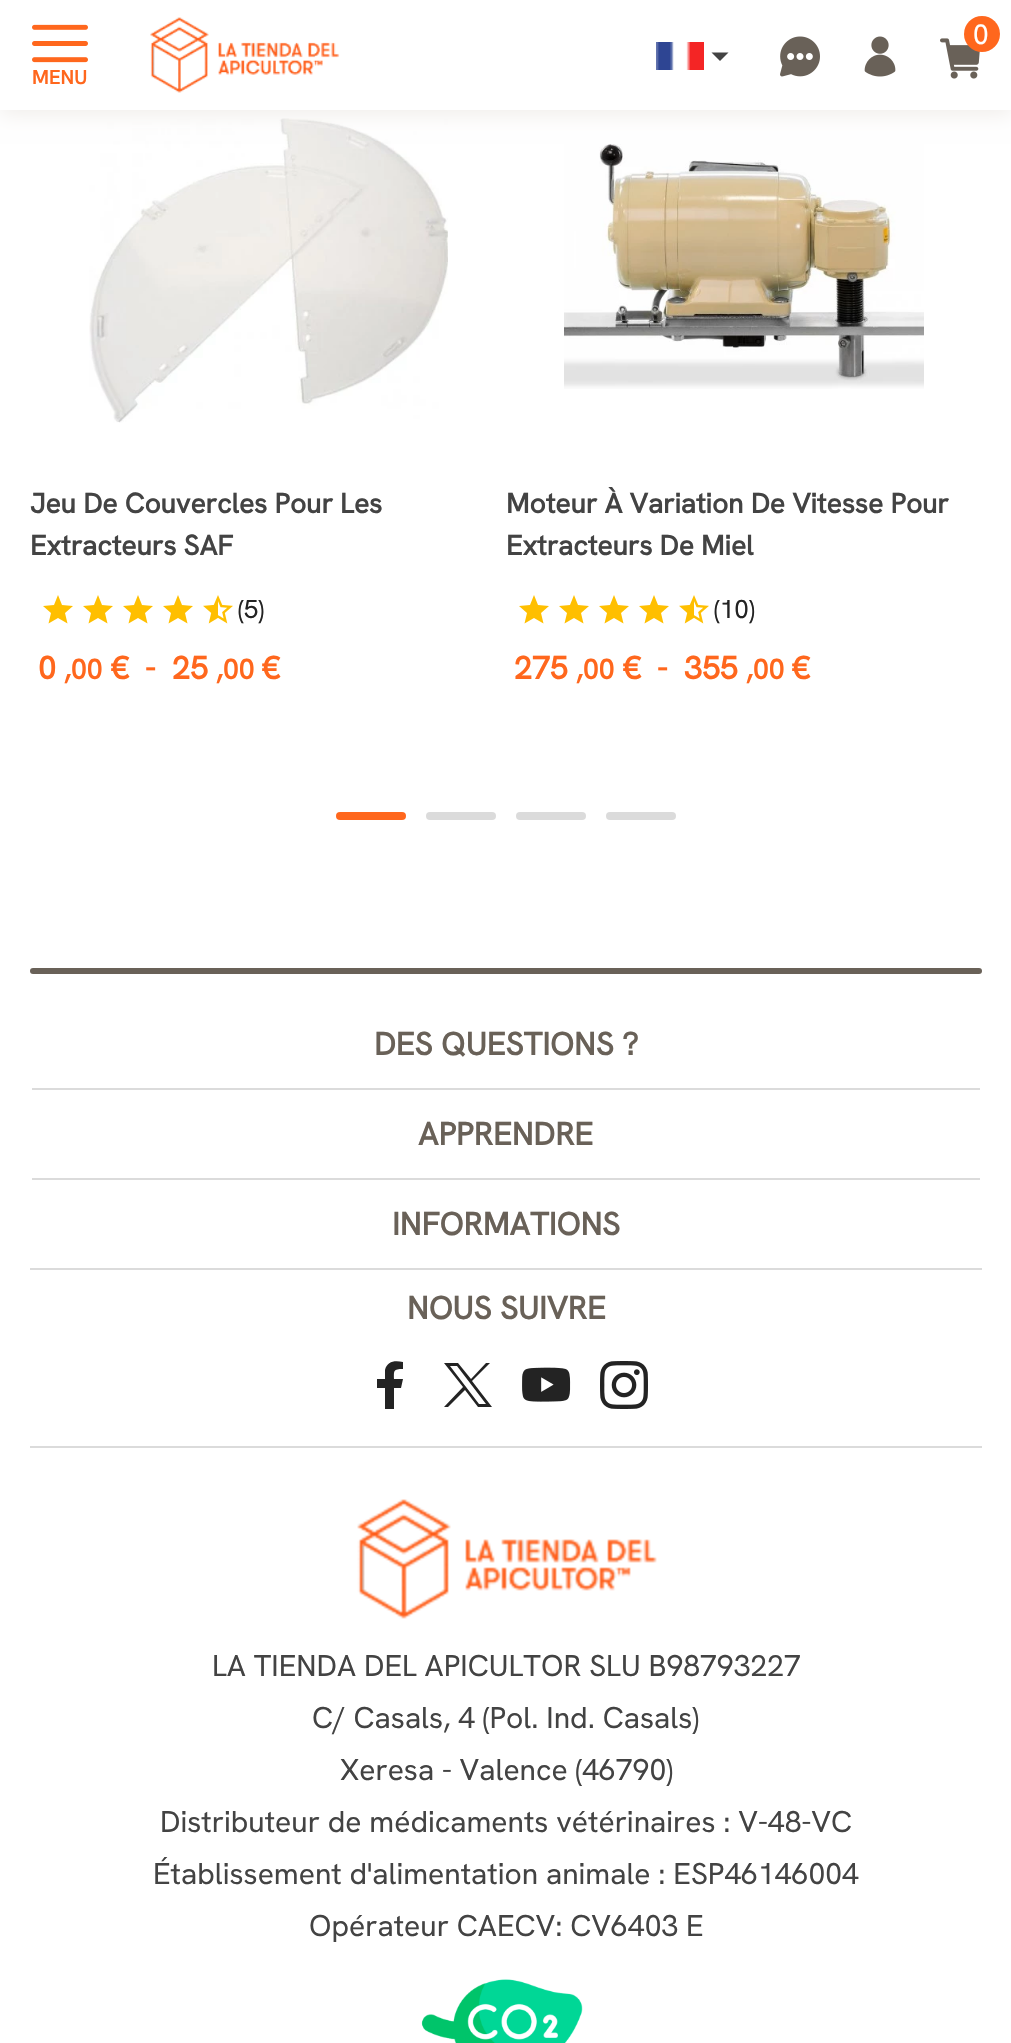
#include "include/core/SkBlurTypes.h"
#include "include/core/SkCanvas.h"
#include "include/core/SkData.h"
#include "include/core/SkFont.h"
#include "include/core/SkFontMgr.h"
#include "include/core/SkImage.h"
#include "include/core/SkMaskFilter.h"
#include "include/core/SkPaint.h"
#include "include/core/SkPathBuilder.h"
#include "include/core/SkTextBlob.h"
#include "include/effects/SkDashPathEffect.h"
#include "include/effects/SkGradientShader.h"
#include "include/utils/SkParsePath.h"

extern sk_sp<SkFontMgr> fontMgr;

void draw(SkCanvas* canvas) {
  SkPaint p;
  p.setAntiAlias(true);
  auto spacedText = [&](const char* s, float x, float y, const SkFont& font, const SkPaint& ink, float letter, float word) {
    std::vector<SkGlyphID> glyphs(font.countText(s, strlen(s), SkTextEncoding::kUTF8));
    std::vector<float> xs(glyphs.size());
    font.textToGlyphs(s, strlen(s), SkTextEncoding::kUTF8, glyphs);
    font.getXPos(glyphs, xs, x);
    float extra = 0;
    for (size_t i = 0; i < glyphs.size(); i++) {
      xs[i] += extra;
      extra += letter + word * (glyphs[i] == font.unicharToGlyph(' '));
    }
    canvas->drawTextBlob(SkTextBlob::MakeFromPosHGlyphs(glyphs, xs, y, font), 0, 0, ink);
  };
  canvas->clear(SK_ColorWHITE);
  canvas->drawImageRect(SkImages::DeferredFromEncodedData(SkData::MakeFromFileName("images/7.png")), SkRect::MakeLTRB(89, 118, 448, 423), SkSamplingOptions());
  canvas->drawImageRect(SkImages::DeferredFromEncodedData(SkData::MakeFromFileName("images/9.png")), SkRect::MakeLTRB(564, 144, 924, 389), SkSamplingOptions());
  p.setColor(SkColorSetRGB(240, 237, 234));
  p.setMaskFilter(SkMaskFilter::MakeBlur(kNormal_SkBlurStyle, 10));
  canvas->drawRect(SkRect::MakeLTRB(0, 4, 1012, 114), p);
  p.setMaskFilter(nullptr);
  p.setColor(SK_ColorWHITE);
  canvas->drawRect(SkRect::MakeLTRB(0, 0, 1011, 110), p);
  canvas->drawImageRect(SkImages::DeferredFromEncodedData(SkData::MakeFromFileName("images/1.png")), SkRect::MakeLTRB(150, 17, 340, 93), SkSamplingOptions());
  canvas->drawImageRect(SkImages::DeferredFromEncodedData(SkData::MakeFromFileName("images/2.png")), SkRect::MakeLTRB(656, 42, 704, 70), SkSamplingOptions());
  p.setColor(SkColorSetRGB(67, 67, 67));
  canvas->drawPath(SkPathBuilder().moveTo(711.5f, 52.5f).lineTo(728.5f, 52.5f).lineTo(720, 61).close().detach(), p);
  canvas->drawImageRect(SkImages::DeferredFromEncodedData(SkData::MakeFromFileName("images/3.png")), SkRect::MakeLTRB(780, 36, 820, 77), SkSamplingOptions());
  canvas->drawImageRect(SkImages::DeferredFromEncodedData(SkData::MakeFromFileName("images/4.png")), SkRect::MakeLTRB(864, 36, 896, 77), SkSamplingOptions());
  canvas->drawImageRect(SkImages::DeferredFromEncodedData(SkData::MakeFromFileName("images/5.png")), SkRect::MakeLTRB(940, 38, 980, 79), SkSamplingOptions());
  p.setColor(SkColorSetRGB(255, 103, 29));
  canvas->drawCircle(982, 34, 18, p);
  canvas->drawImageRect(SkImages::DeferredFromEncodedData(SkData::MakeFromFileName("images/6.png")), SkRect::MakeLTRB(32, 24, 88, 63), SkSamplingOptions());
  p.setColor(SkColorSetRGB(255, 191, 0));
  canvas->drawPath(SkPathBuilder().moveTo(58, 618).lineTo(48.5f, 623.5f).lineTo(51, 613).lineTo(43, 606).lineTo(54, 605).lineTo(58, 595).lineTo(62, 605).lineTo(73, 606).lineTo(65, 613).lineTo(67.5f, 623.5f).close().detach(), p);
  canvas->drawPath(SkPathBuilder().moveTo(98, 618).lineTo(88.5f, 623.5f).lineTo(91, 613).lineTo(83, 606).lineTo(94, 605).lineTo(98, 595).lineTo(102, 605).lineTo(113, 606).lineTo(105, 613).lineTo(107.5f, 623.5f).close().detach(), p);
  canvas->drawPath(SkPathBuilder().moveTo(138, 618).lineTo(128.5f, 623.5f).lineTo(131, 613).lineTo(123, 606).lineTo(134, 605).lineTo(138, 595).lineTo(142, 605).lineTo(153, 606).lineTo(145, 613).lineTo(147.5f, 623.5f).close().detach(), p);
  canvas->drawPath(SkPathBuilder().moveTo(178, 618).lineTo(168.5f, 623.5f).lineTo(171, 613).lineTo(163, 606).lineTo(174, 605).lineTo(178, 595).lineTo(182, 605).lineTo(193, 606).lineTo(185, 613).lineTo(187.5f, 623.5f).close().detach(), p);
  canvas->drawImageRect(SkImages::DeferredFromEncodedData(SkData::MakeFromFileName("images/8.png")), SkRect::MakeLTRB(203, 595, 233, 624), SkSamplingOptions());
  canvas->drawPath(SkPathBuilder().moveTo(534, 618).lineTo(524.5f, 623.5f).lineTo(527, 613).lineTo(519, 606).lineTo(530, 605).lineTo(534, 595).lineTo(538, 605).lineTo(549, 606).lineTo(541, 613).lineTo(543.5f, 623.5f).close().detach(), p);
  canvas->drawPath(SkPathBuilder().moveTo(574, 618).lineTo(564.5f, 623.5f).lineTo(567, 613).lineTo(559, 606).lineTo(570, 605).lineTo(574, 595).lineTo(578, 605).lineTo(589, 606).lineTo(581, 613).lineTo(583.5f, 623.5f).close().detach(), p);
  canvas->drawPath(SkPathBuilder().moveTo(614, 618).lineTo(604.5f, 623.5f).lineTo(607, 613).lineTo(599, 606).lineTo(610, 605).lineTo(614, 595).lineTo(618, 605).lineTo(629, 606).lineTo(621, 613).lineTo(623.5f, 623.5f).close().detach(), p);
  canvas->drawPath(SkPathBuilder().moveTo(654, 618).lineTo(644.5f, 623.5f).lineTo(647, 613).lineTo(639, 606).lineTo(650, 605).lineTo(654, 595).lineTo(658, 605).lineTo(669, 606).lineTo(661, 613).lineTo(663.5f, 623.5f).close().detach(), p);
  canvas->drawImageRect(SkImages::DeferredFromEncodedData(SkData::MakeFromFileName("images/8.png")), SkRect::MakeLTRB(679, 595, 709, 624), SkSamplingOptions());
  p.setColor(SkColorSetRGB(255, 103, 29));
  canvas->drawRoundRect(SkRect::MakeLTRB(336, 812, 406, 820), 4, 4, p);
  p.setColor(SkColorSetRGB(219, 219, 219));
  canvas->drawRoundRect(SkRect::MakeLTRB(426, 812, 496, 820), 4, 4, p);
  canvas->drawRoundRect(SkRect::MakeLTRB(516, 812, 586, 820), 4, 4, p);
  canvas->drawRoundRect(SkRect::MakeLTRB(606, 812, 676, 820), 4, 4, p);
  p.setColor(SkColorSetRGB(105, 97, 88));
  canvas->drawRoundRect(SkRect::MakeLTRB(30, 968, 982, 974), 3, 3, p);
  p.setColor(SkColorSetRGB(219, 219, 219));
  canvas->drawRect(SkRect::MakeLTRB(32, 1088, 980, 1090), p);
  canvas->drawRect(SkRect::MakeLTRB(32, 1178, 980, 1180), p);
  canvas->drawRect(SkRect::MakeLTRB(30, 1268, 982, 1270), p);
  canvas->drawRect(SkRect::MakeLTRB(30, 1446, 982, 1448), p);
  p.setColor(SkColorSetRGB(35, 35, 35));
  canvas->drawPath(SkPathBuilder().moveTo(401, 1388).lineTo(403, 1379).lineTo(394, 1379).cubicTo(394, 1371, 393, 1369, 403, 1369).lineTo(403, 1362).cubicTo(395, 1360, 387, 1361, 385, 1370).lineTo(385, 1379).lineTo(377, 1379).lineTo(377, 1388).lineTo(385, 1388).lineTo(385, 1409).lineTo(394, 1409).lineTo(394, 1388).close().detach(), p);
  canvas->drawPath(SkPathBuilder().moveTo(444, 1363).lineTo(463, 1387).lineTo(444, 1407).lineTo(448, 1407).lineTo(465, 1390).lineTo(478, 1407).lineTo(492, 1407).lineTo(472, 1381).lineTo(490, 1363).lineTo(486, 1363).lineTo(471, 1379).lineTo(458, 1363).close().moveTo(450, 1366).lineTo(457, 1366).lineTo(486, 1404).lineTo(479, 1404).close().detach(), p);
  canvas->drawImageRect(SkImages::DeferredFromEncodedData(SkData::MakeFromFileName("images/10.png")), SkRect::MakeLTRB(522, 1367, 571, 1402), SkSamplingOptions());
  canvas->drawImageRect(SkImages::DeferredFromEncodedData(SkData::MakeFromFileName("images/11.png")), SkRect::MakeLTRB(600, 1361, 648, 1409), SkSamplingOptions());
  canvas->drawImageRect(SkImages::DeferredFromEncodedData(SkData::MakeFromFileName("images/12.png")), SkRect::MakeLTRB(357, 1499, 657, 1619), SkSamplingOptions());
  canvas->drawImageRect(SkImages::DeferredFromEncodedData(SkData::MakeFromFileName("images/13.png")), SkRect::MakeLTRB(421, 1979, 583, 2043), SkSamplingOptions());
  SkFont font1(fontMgr->matchFamilyStyle("Hanken Grotesk", SkFontStyle::Normal()), 28);
  font1.setSubpixel(true);
  p.setColor(SK_ColorWHITE);
  spacedText("0", 973, 44, font1, p, -2, 0);
  SkFont font2(fontMgr->matchFamilyStyle("Hanken Grotesk", SkFontStyle(600, SkFontStyle::kNormal_Width, SkFontStyle::kUpright_Slant)), 20);
  font2.setSubpixel(true);
  p.setColor(SkColorSetRGB(255, 103, 29));
  canvas->drawString("MENU", 32, 84, font2, p);
  SkFont font3(fontMgr->matchFamilyStyle("Hanken Grotesk", SkFontStyle::Bold()), 28);
  font3.setSubpixel(true);
  p.setColor(SkColorSetRGB(67, 67, 67));
  canvas->drawString("Jeu De Couvercles Pour Les", 30, 513, font3, p);
  canvas->drawString("Extracteurs SAF", 30, 555, font3, p);
  SkFont font4(fontMgr->matchFamilyStyle("Hanken Grotesk", SkFontStyle::Normal()), 26);
  font4.setSubpixel(true);
  p.setColor(SkColorSetRGB(35, 35, 35));
  canvas->drawString("(5)", 238, 618, font4, p);
  SkFont font5(fontMgr->matchFamilyStyle("Hanken Grotesk", SkFontStyle::Bold()), 32);
  font5.setSubpixel(true);
  p.setColor(SkColorSetRGB(255, 103, 29));
  canvas->drawString("0", 38, 679, font5, p);
  canvas->drawString(",00", 64, 679, font3, p);
  canvas->drawString("€", 111, 679, font5, p);
  canvas->drawString("-", 145, 679, font5, p);
  canvas->drawString("25", 172, 679, font5, p);
  canvas->drawString(",00", 216, 679, font3, p);
  canvas->drawString("€", 262, 679, font5, p);
  p.setColor(SkColorSetRGB(67, 67, 67));
  canvas->drawString("Moteur À Variation De Vitesse Pour", 506, 513, font3, p);
  canvas->drawString("Extracteurs De Miel", 506, 555, font3, p);
  p.setColor(SkColorSetRGB(35, 35, 35));
  canvas->drawString("(10)", 714, 618, font4, p);
  p.setColor(SkColorSetRGB(255, 103, 29));
  canvas->drawString("275", 514, 679, font5, p);
  canvas->drawString(",00", 576, 679, font3, p);
  canvas->drawString("€", 623, 679, font5, p);
  canvas->drawString("-", 657, 679, font5, p);
  canvas->drawString("355", 684, 679, font5, p);
  canvas->drawString(",00", 746, 679, font3, p);
  canvas->drawString("€", 792, 679, font5, p);
  p.setColor(SkColorSetRGB(105, 97, 88));
  canvas->drawString("DES QUESTIONS ?", 374, 1055, font5, p);
  canvas->drawString("APPRENDRE", 418, 1145, font5, p);
  canvas->drawString("INFORMATIONS", 392, 1235, font5, p);
  canvas->drawString("NOUS SUIVRE", 407, 1319, font5, p);
  SkFont font6(fontMgr->matchFamilyStyle("Hanken Grotesk", SkFontStyle::Normal()), 30);
  font6.setSubpixel(true);
  p.setColor(SkColorSetRGB(67, 67, 67));
  canvas->drawString("LA TIENDA DEL APICULTOR SLU B98793227", 212, 1676, font6, p);
  canvas->drawString("C/ Casals, 4 (Pol. Ind. Casals)", 312, 1728, font6, p);
  canvas->drawString("Xeresa - Valence (46790)", 340, 1780, font6, p);
  canvas->drawString("Distributeur de médicaments vétérinaires : V-48-VC", 160, 1832, font6, p);
  canvas->drawString("Établissement d'alimentation animale : ESP46146004", 153, 1884, font6, p);
  canvas->drawString("Opérateur CAECV: CV6403 E", 309, 1936, font6, p);
}
